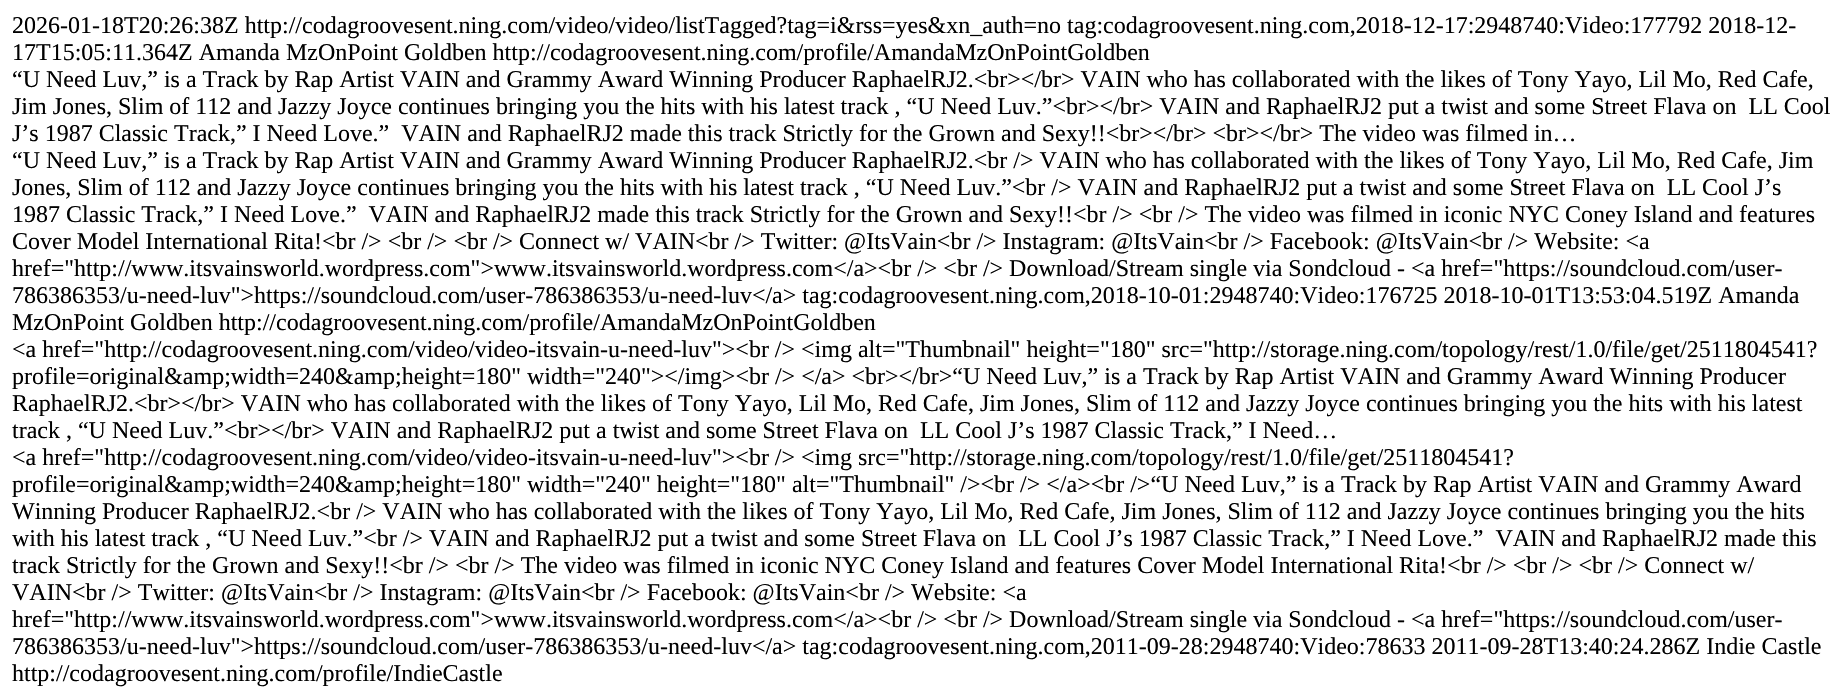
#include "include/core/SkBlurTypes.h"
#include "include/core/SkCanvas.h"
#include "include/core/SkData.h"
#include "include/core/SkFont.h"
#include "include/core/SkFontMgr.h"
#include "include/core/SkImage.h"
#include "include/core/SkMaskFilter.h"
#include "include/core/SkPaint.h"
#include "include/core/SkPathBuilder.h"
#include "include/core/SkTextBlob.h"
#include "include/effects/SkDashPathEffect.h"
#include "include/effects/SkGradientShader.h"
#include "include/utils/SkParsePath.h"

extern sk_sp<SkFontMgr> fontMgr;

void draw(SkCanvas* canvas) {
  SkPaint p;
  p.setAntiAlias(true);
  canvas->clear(SK_ColorWHITE);
  SkFont font1(fontMgr->matchFamilyStyle("Liberation Serif", SkFontStyle::Normal()), 24);
  font1.setSubpixel(true);
  p.setColor(SK_ColorBLACK);
  canvas->drawString("2026-01-18T20:26:38Z http://codagroovesent.ning.com/video/video/listTagged?tag=i&rss=yes&xn_auth=no tag:codagroovesent.ning.com,2018-12-17:2948740:Video:177792 2018-12-", 12, 33, font1, p);
  canvas->drawString("17T15:05:11.364Z Amanda MzOnPoint Goldben http://codagroovesent.ning.com/profile/AmandaMzOnPointGoldben", 12, 60, font1, p);
  canvas->drawString("“U Need Luv,” is a Track by Rap Artist VAIN and Grammy Award Winning Producer RaphaelRJ2.<br></br> VAIN who has collaborated with the likes of Tony Yayo, Lil Mo, Red Cafe,", 12, 87, font1, p);
  canvas->drawString("Jim Jones, Slim of 112 and Jazzy Joyce continues bringing you the hits with his latest track , “U Need Luv.”<br></br> VAIN and RaphaelRJ2 put a twist and some Street Flava on  LL Cool", 12, 114, font1, p);
  canvas->drawString("J’s 1987 Classic Track,” I Need Love.”  VAIN and RaphaelRJ2 made this track Strictly for the Grown and Sexy!!<br></br> <br></br> The video was filmed in…", 12, 141, font1, p);
  canvas->drawString("“U Need Luv,” is a Track by Rap Artist VAIN and Grammy Award Winning Producer RaphaelRJ2.<br /> VAIN who has collaborated with the likes of Tony Yayo, Lil Mo, Red Cafe, Jim", 12, 168, font1, p);
  canvas->drawString("Jones, Slim of 112 and Jazzy Joyce continues bringing you the hits with his latest track , “U Need Luv.”<br /> VAIN and RaphaelRJ2 put a twist and some Street Flava on  LL Cool J’s", 12, 195, font1, p);
  canvas->drawString("1987 Classic Track,” I Need Love.”  VAIN and RaphaelRJ2 made this track Strictly for the Grown and Sexy!!<br /> <br /> The video was filmed in iconic NYC Coney Island and features", 12, 222, font1, p);
  canvas->drawString("Cover Model International Rita!<br /> <br /> <br /> Connect w/ VAIN<br /> Twitter: @ItsVain<br /> Instagram: @ItsVain<br /> Facebook: @ItsVain<br /> Website: <a", 12, 249, font1, p);
  canvas->drawString("href=\"http://www.itsvainsworld.wordpress.com\">www.itsvainsworld.wordpress.com</a><br /> <br /> Download/Stream single via Sondcloud - <a href=\"https://soundcloud.com/user-", 12, 276, font1, p);
  canvas->drawString("786386353/u-need-luv\">https://soundcloud.com/user-786386353/u-need-luv</a> tag:codagroovesent.ning.com,2018-10-01:2948740:Video:176725 2018-10-01T13:53:04.519Z Amanda", 12, 303, font1, p);
  canvas->drawString("MzOnPoint Goldben http://codagroovesent.ning.com/profile/AmandaMzOnPointGoldben", 12, 330, font1, p);
  canvas->drawString("<a href=\"http://codagroovesent.ning.com/video/video-itsvain-u-need-luv\"><br /> <img alt=\"Thumbnail\" height=\"180\" src=\"http://storage.ning.com/topology/rest/1.0/file/get/2511804541?", 12, 357, font1, p);
  canvas->drawString("profile=original&amp;width=240&amp;height=180\" width=\"240\"></img><br /> </a> <br></br>“U Need Luv,” is a Track by Rap Artist VAIN and Grammy Award Winning Producer", 12, 384, font1, p);
  canvas->drawString("RaphaelRJ2.<br></br> VAIN who has collaborated with the likes of Tony Yayo, Lil Mo, Red Cafe, Jim Jones, Slim of 112 and Jazzy Joyce continues bringing you the hits with his latest", 12, 411, font1, p);
  canvas->drawString("track , “U Need Luv.”<br></br> VAIN and RaphaelRJ2 put a twist and some Street Flava on  LL Cool J’s 1987 Classic Track,” I Need…", 12, 438, font1, p);
  canvas->drawString("<a href=\"http://codagroovesent.ning.com/video/video-itsvain-u-need-luv\"><br /> <img src=\"http://storage.ning.com/topology/rest/1.0/file/get/2511804541?", 12, 465, font1, p);
  canvas->drawString("profile=original&amp;width=240&amp;height=180\" width=\"240\" height=\"180\" alt=\"Thumbnail\" /><br /> </a><br />“U Need Luv,” is a Track by Rap Artist VAIN and Grammy Award", 12, 492, font1, p);
  canvas->drawString("Winning Producer RaphaelRJ2.<br /> VAIN who has collaborated with the likes of Tony Yayo, Lil Mo, Red Cafe, Jim Jones, Slim of 112 and Jazzy Joyce continues bringing you the hits", 12, 519, font1, p);
  canvas->drawString("with his latest track , “U Need Luv.”<br /> VAIN and RaphaelRJ2 put a twist and some Street Flava on  LL Cool J’s 1987 Classic Track,” I Need Love.”  VAIN and RaphaelRJ2 made this", 12, 546, font1, p);
  canvas->drawString("track Strictly for the Grown and Sexy!!<br /> <br /> The video was filmed in iconic NYC Coney Island and features Cover Model International Rita!<br /> <br /> <br /> Connect w/", 12, 573, font1, p);
  canvas->drawString("VAIN<br /> Twitter: @ItsVain<br /> Instagram: @ItsVain<br /> Facebook: @ItsVain<br /> Website: <a", 12, 600, font1, p);
  canvas->drawString("href=\"http://www.itsvainsworld.wordpress.com\">www.itsvainsworld.wordpress.com</a><br /> <br /> Download/Stream single via Sondcloud - <a href=\"https://soundcloud.com/user-", 12, 627, font1, p);
  canvas->drawString("786386353/u-need-luv\">https://soundcloud.com/user-786386353/u-need-luv</a> tag:codagroovesent.ning.com,2011-09-28:2948740:Video:78633 2011-09-28T13:40:24.286Z Indie Castle", 12, 654, font1, p);
  canvas->drawString("http://codagroovesent.ning.com/profile/IndieCastle", 12, 681, font1, p);
}
